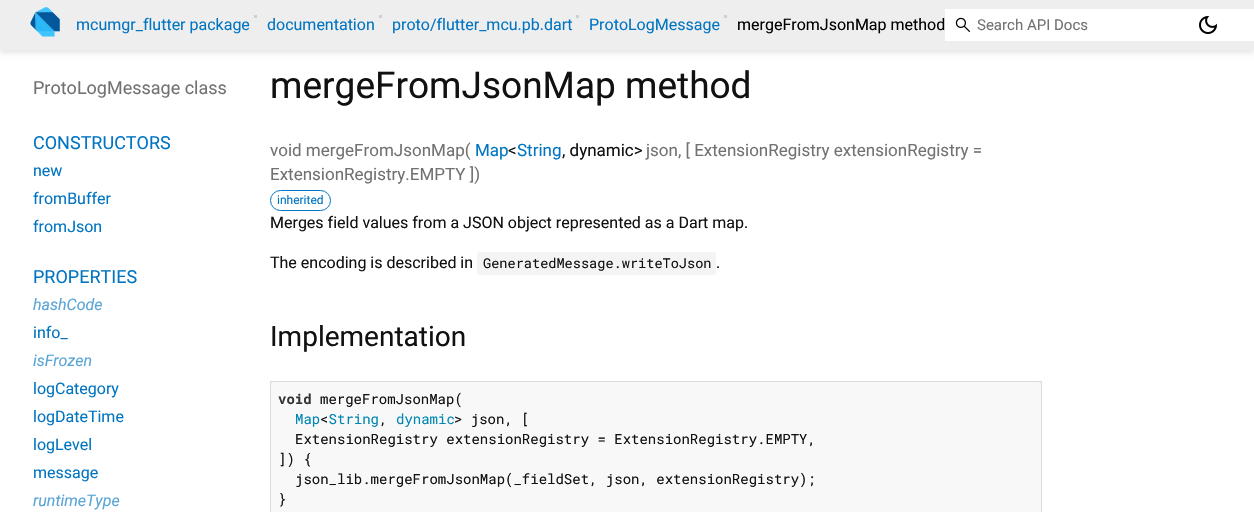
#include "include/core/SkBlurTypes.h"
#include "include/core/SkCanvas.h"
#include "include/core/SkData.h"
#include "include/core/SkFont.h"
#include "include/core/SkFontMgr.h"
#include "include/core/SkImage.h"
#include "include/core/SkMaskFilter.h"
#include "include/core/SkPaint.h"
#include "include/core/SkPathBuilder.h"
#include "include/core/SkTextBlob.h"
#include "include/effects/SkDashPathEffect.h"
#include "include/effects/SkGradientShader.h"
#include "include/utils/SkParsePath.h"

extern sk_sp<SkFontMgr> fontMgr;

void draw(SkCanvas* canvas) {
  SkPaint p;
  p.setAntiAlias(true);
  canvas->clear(SK_ColorWHITE);
  p.setColor(SkColorSetARGB(26, 0, 0, 0));
  p.setMaskFilter(SkMaskFilter::MakeBlur(kNormal_SkBlurStyle, 2.5f));
  canvas->drawRect(SkRect::MakeLTRB(0, 3, 1254, 53), p);
  p.setMaskFilter(nullptr);
  p.setColor(SkColorSetRGB(238, 238, 238));
  canvas->drawRect(SkRect::MakeLTRB(0, 0, 1254, 50), p);
  canvas->drawImageRect(SkImages::DeferredFromEncodedData(SkData::MakeFromFileName("images/1.png")), SkRect::MakeLTRB(30, 7, 60, 37), SkSamplingOptions());
  p.setColor(SkColorSetRGB(207, 207, 207));
  canvas->drawRect(SkRect::MakeLTRB(254, 15, 257, 18), p);
  canvas->drawRect(SkRect::MakeLTRB(379, 15, 382, 18), p);
  canvas->drawRect(SkRect::MakeLTRB(576, 15, 579, 18), p);
  canvas->drawRect(SkRect::MakeLTRB(724, 15, 727, 18), p);
  p.setColor(SK_ColorWHITE);
  canvas->drawRect(SkRect::MakeLTRB(945, 9, 1254, 41), p);
  canvas->drawImageRect(SkImages::DeferredFromEncodedData(SkData::MakeFromFileName("images/2.png")), SkRect::MakeLTRB(955, 17, 971, 32), SkSamplingOptions());
  canvas->drawImageRect(SkImages::DeferredFromEncodedData(SkData::MakeFromFileName("images/3.png")), SkRect::MakeLTRB(1199, 16, 1217, 34), SkSamplingOptions());
  p.setStyle(SkPaint::kStroke_Style);
  p.setStrokeWidth(1);
  p.setColor(SkColorSetRGB(1, 117, 194));
  canvas->drawRoundRect(SkRect::MakeLTRB(270.5f, 190.5f, 330.5f, 210.5f), 10, 10, p);
  p.setStyle(SkPaint::kFill_Style);
  p.setColor(SkColorSetRGB(244, 244, 244));
  canvas->drawRoundRect(SkRect::MakeLTRB(477, 252, 716, 275), 3, 3, p);
  p.setColor(SkColorSetRGB(238, 238, 238));
  canvas->drawRect(SkRect::MakeLTRB(271, 382, 1041, 385), p);
  p.setStyle(SkPaint::kStroke_Style);
  p.setColor(SkColorSetRGB(221, 221, 221));
  canvas->drawRect(SkRect::MakeLTRB(270.5f, 381.5f, 1041.5f, 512.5f), p);
  p.setStyle(SkPaint::kFill_Style);
  p.setColor(SkColorSetRGB(248, 248, 248));
  canvas->drawRoundRect(SkRect::MakeLTRB(271, 382, 1041, 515), 3, 3, p);
  SkFont font1(fontMgr->matchFamilyStyle("Roboto", SkFontStyle::Normal()), 16);
  font1.setSubpixel(true);
  p.setColor(SkColorSetRGB(1, 117, 194));
  canvas->drawString("mcumgr_flutter package", 76, 30, font1, p);
  canvas->drawString("documentation", 267, 30, font1, p);
  canvas->drawString("proto/flutter_mcu.pb.dart", 392, 30, font1, p);
  canvas->drawString("ProtoLogMessage", 589, 30, font1, p);
  p.setColor(SK_ColorBLACK);
  canvas->drawString("mergeFromJsonMap method", 737, 30, font1, p);
  SkFont font2(fontMgr->matchFamilyStyle("Roboto", SkFontStyle::Normal()), 15);
  font2.setSubpixel(true);
  p.setColor(SkColorSetRGB(114, 114, 114));
  canvas->drawString("Search API Docs", 977, 30, font2, p);
  SkFont font3(fontMgr->matchFamilyStyle("Roboto", SkFontStyle::Normal()), 18);
  font3.setSubpixel(true);
  canvas->drawString("ProtoLogMessage class", 33, 94, font3, p);
  p.setColor(SkColorSetRGB(1, 117, 194));
  canvas->drawString("CONSTRUCTORS", 33, 149, font3, p);
  canvas->drawString("new", 33, 176, font1, p);
  canvas->drawString("fromBuffer", 33, 204, font1, p);
  canvas->drawString("fromJson", 33, 232, font1, p);
  canvas->drawString("PROPERTIES", 33, 283, font3, p);
  SkFont font4(fontMgr->matchFamilyStyle("Roboto", SkFontStyle::Italic()), 16);
  font4.setSubpixel(true);
  p.setColor(SkColorSetRGB(90, 165, 215));
  canvas->drawString("hashCode", 33, 310, font4, p);
  p.setColor(SkColorSetRGB(1, 117, 194));
  canvas->drawString("info_", 33, 338, font1, p);
  p.setColor(SkColorSetRGB(90, 165, 215));
  canvas->drawString("isFrozen", 33, 366, font4, p);
  p.setColor(SkColorSetRGB(1, 117, 194));
  canvas->drawString("logCategory", 33, 394, font1, p);
  canvas->drawString("logDateTime", 33, 422, font1, p);
  canvas->drawString("logLevel", 33, 450, font1, p);
  canvas->drawString("message", 33, 478, font1, p);
  p.setColor(SkColorSetRGB(90, 165, 215));
  canvas->drawString("runtimeType", 33, 506, font4, p);
  SkFont font5(fontMgr->matchFamilyStyle("Roboto", SkFontStyle::Normal()), 37);
  font5.setSubpixel(true);
  p.setColor(SkColorSetRGB(17, 17, 17));
  canvas->drawString("mergeFromJsonMap method", 270, 98, font5, p);
  SkFont font6(fontMgr->matchFamilyStyle("Roboto", SkFontStyle::Normal()), 17);
  font6.setSubpixel(true);
  p.setColor(SkColorSetRGB(114, 114, 114));
  canvas->drawString("void mergeFromJsonMap(", 270, 156, font6, p);
  p.setColor(SkColorSetRGB(1, 117, 194));
  canvas->drawString("Map", 475, 156, font6, p);
  p.setColor(SkColorSetRGB(17, 17, 17));
  canvas->drawString("<", 508, 156, font6, p);
  p.setColor(SkColorSetRGB(1, 117, 194));
  canvas->drawString("String", 517, 156, font6, p);
  p.setColor(SkColorSetRGB(17, 17, 17));
  canvas->drawString(", dynamic>", 562, 156, font6, p);
  p.setColor(SkColorSetRGB(114, 114, 114));
  canvas->drawString("json, [ ExtensionRegistry extensionRegistry =", 646, 156, font6, p);
  canvas->drawString("ExtensionRegistry.EMPTY ])", 270, 180, font6, p);
  SkFont font7(fontMgr->matchFamilyStyle("Roboto", SkFontStyle::Normal()), 12);
  font7.setSubpixel(true);
  p.setColor(SkColorSetRGB(1, 117, 194));
  canvas->drawString("inherited", 277, 204, font7, p);
  p.setColor(SkColorSetRGB(17, 17, 17));
  canvas->drawString("Merges field values from a JSON object represented as a Dart map.", 270, 228, font1, p);
  canvas->drawString("The encoding is described in", 270, 268, font1, p);
  SkFont font8(fontMgr->matchFamilyStyle("Roboto Mono", SkFontStyle::Normal()), 13.6f);
  font8.setSubpixel(true);
  canvas->drawString("GeneratedMessage.writeToJson", 483, 268, font8, p);
  canvas->drawString(".", 716, 268, font1, p);
  SkFont font9(fontMgr->matchFamilyStyle("Roboto", SkFontStyle::Normal()), 28);
  font9.setSubpixel(true);
  canvas->drawString("Implementation", 270, 346, font9, p);
  SkFont font10(fontMgr->matchFamilyStyle("Roboto Mono", SkFontStyle::Bold()), 14);
  font10.setSubpixel(true);
  p.setColor(SkColorSetRGB(51, 51, 51));
  canvas->drawString("void", 278, 404, font10, p);
  SkFont font11(fontMgr->matchFamilyStyle("Roboto Mono", SkFontStyle::Normal()), 14);
  font11.setSubpixel(true);
  p.setColor(SkColorSetRGB(17, 17, 17));
  canvas->drawString("mergeFromJsonMap(", 320, 404, font11, p);
  p.setColor(SkColorSetRGB(0, 134, 179));
  canvas->drawString("Map String", 295, 424, font11, p);
  canvas->drawString("dynamic", 396, 424, font11, p);
  p.setColor(SkColorSetRGB(17, 17, 17));
  canvas->drawString("> json, [", 454, 424, font11, p);
  canvas->drawString("<", 320, 424, font11, p);
  canvas->drawString(",", 379, 424, font11, p);
  canvas->drawString("ExtensionRegistry extensionRegistry = ExtensionRegistry.EMPTY,", 295, 444, font11, p);
  canvas->drawString("]) {", 278, 464, font11, p);
  canvas->drawString("json_lib.mergeFromJsonMap(_fieldSet, json, extensionRegistry);", 295, 484, font11, p);
  canvas->drawString("}", 278, 504, font11, p);
}
